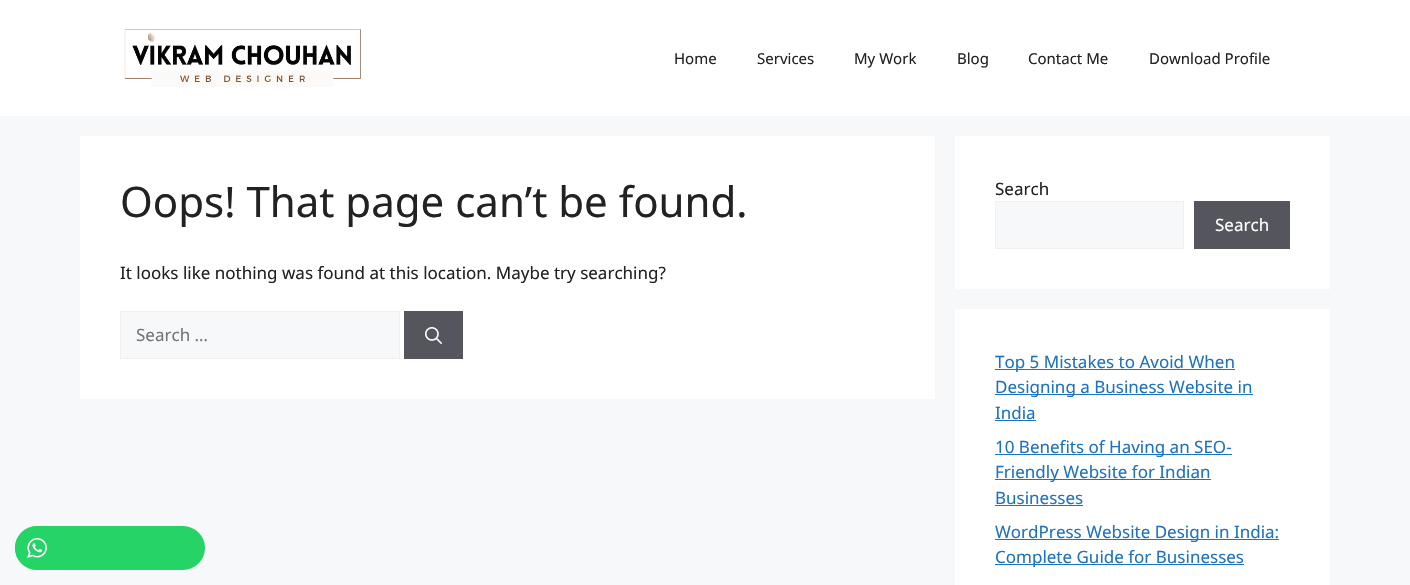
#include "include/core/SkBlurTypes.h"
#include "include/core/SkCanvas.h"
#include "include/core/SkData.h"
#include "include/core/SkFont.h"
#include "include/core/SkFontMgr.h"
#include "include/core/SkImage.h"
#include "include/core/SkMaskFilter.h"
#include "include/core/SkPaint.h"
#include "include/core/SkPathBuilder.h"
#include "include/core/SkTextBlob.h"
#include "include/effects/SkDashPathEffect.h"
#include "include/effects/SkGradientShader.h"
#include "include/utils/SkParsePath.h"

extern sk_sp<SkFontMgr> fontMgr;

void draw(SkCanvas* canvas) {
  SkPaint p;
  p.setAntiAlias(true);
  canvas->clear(SkColorSetRGB(247, 248, 249));
  p.setColor(SK_ColorWHITE);
  canvas->drawRect(SkRect::MakeLTRB(0, 0, 1410, 116), p);
  canvas->drawImageRect(SkImages::DeferredFromEncodedData(SkData::MakeFromFileName("images/1.png")), SkRect::MakeLTRB(124, 29, 361, 87), SkSamplingOptions());
  p.setColor(SkColorSetRGB(37, 211, 102));
  canvas->drawRoundRect(SkRect::MakeLTRB(15, 526, 205, 570), 22, 22, p);
  canvas->drawCircle(37, 548, 22, p);
  canvas->drawImageRect(SkImages::DeferredFromEncodedData(SkData::MakeFromFileName("images/2.png")), SkRect::MakeLTRB(27, 538, 47, 558), SkSamplingOptions());
  p.setColor(SK_ColorWHITE);
  canvas->drawRect(SkRect::MakeLTRB(80, 136, 935, 399), p);
  p.setColor(SkColorSetRGB(247, 248, 249));
  canvas->drawRect(SkRect::MakeLTRB(120.5f, 311.5f, 399.5f, 358.5f), p);
  p.setStyle(SkPaint::kStroke_Style);
  p.setStrokeWidth(1);
  p.setColor(SkColorSetRGB(240, 240, 240));
  canvas->drawRect(SkRect::MakeLTRB(120.5f, 311.5f, 399.5f, 358.5f), p);
  p.setStyle(SkPaint::kFill_Style);
  p.setColor(SkColorSetRGB(85, 85, 94));
  canvas->drawRect(SkRect::MakeLTRB(404, 311, 463, 359), p);
  canvas->drawImageRect(SkImages::DeferredFromEncodedData(SkData::MakeFromFileName("images/3.png")), SkRect::MakeLTRB(425, 327, 442, 344), SkSamplingOptions());
  p.setColor(SK_ColorWHITE);
  canvas->drawRect(SkRect::MakeLTRB(955, 136, 1330, 289), p);
  p.setColor(SkColorSetRGB(247, 248, 249));
  canvas->drawRect(SkRect::MakeLTRB(995.5f, 201.5f, 1183.5f, 248.5f), p);
  p.setStyle(SkPaint::kStroke_Style);
  p.setColor(SkColorSetRGB(240, 240, 240));
  canvas->drawRect(SkRect::MakeLTRB(995.5f, 201.5f, 1183.5f, 248.5f), p);
  p.setStyle(SkPaint::kFill_Style);
  p.setColor(SkColorSetRGB(85, 85, 94));
  canvas->drawRect(SkRect::MakeLTRB(1194, 201, 1290, 249), p);
  p.setColor(SK_ColorWHITE);
  canvas->drawRect(SkRect::MakeLTRB(955, 309, 1330, 585), p);
  p.setColor(SkColorSetRGB(30, 115, 190));
  canvas->drawRect(SkRect::MakeLTRB(995, 369, 1235, 370), p);
  canvas->drawRect(SkRect::MakeLTRB(995, 394, 1253, 395), p);
  canvas->drawRect(SkRect::MakeLTRB(995, 420, 1036, 421), p);
  canvas->drawRect(SkRect::MakeLTRB(995, 454, 1232, 455), p);
  canvas->drawRect(SkRect::MakeLTRB(995, 479, 1211, 480), p);
  canvas->drawRect(SkRect::MakeLTRB(995, 505, 1083, 506), p);
  canvas->drawRect(SkRect::MakeLTRB(995, 539, 1279, 540), p);
  canvas->drawRect(SkRect::MakeLTRB(995, 564, 1244, 565), p);
  SkFont font1(fontMgr->matchFamilyStyle("Noto Sans", SkFontStyle::Normal()), 15);
  font1.setSubpixel(true);
  p.setColor(SkColorSetRGB(34, 34, 34));
  canvas->drawString("Home", 674, 64, font1, p);
  canvas->drawString("Services", 757, 64, font1, p);
  canvas->drawString("My Work", 854, 64, font1, p);
  canvas->drawString("Blog", 957, 64, font1, p);
  canvas->drawString("Contact Me", 1028, 64, font1, p);
  canvas->drawString("Download Profile", 1149, 64, font1, p);
  SkFont font2(fontMgr->matchFamilyStyle("Noto Sans", SkFontStyle::Normal()), 42);
  font2.setSubpixel(true);
  canvas->drawString("Oops! That page can’t be found.", 120, 217, font2, p);
  SkFont font3(fontMgr->matchFamilyStyle("Noto Sans", SkFontStyle::Normal()), 17);
  font3.setSubpixel(true);
  canvas->drawString("It looks like nothing was found at this location. Maybe try searching?", 120, 279, font3, p);
  p.setColor(SkColorSetRGB(117, 117, 117));
  canvas->drawString("Search …", 136, 341, font3, p);
  p.setColor(SkColorSetRGB(34, 34, 34));
  canvas->drawString("Search", 995, 195, font3, p);
  p.setColor(SK_ColorWHITE);
  canvas->drawString("Search", 1215, 231, font3, p);
  p.setColor(SkColorSetRGB(30, 115, 190));
  canvas->drawString("Top 5 Mistakes to Avoid When", 995, 368, font3, p);
  canvas->drawString("Designing a Business Website in", 995, 393, font3, p);
  canvas->drawString("India", 995, 419, font3, p);
  canvas->drawString("10 Benefits of Having an SEO-", 995, 453, font3, p);
  canvas->drawString("Friendly Website for Indian", 995, 478, font3, p);
  canvas->drawString("Businesses", 995, 504, font3, p);
  canvas->drawString("WordPress Website Design in India:", 995, 538, font3, p);
  canvas->drawString("Complete Guide for Businesses", 995, 563, font3, p);
}
